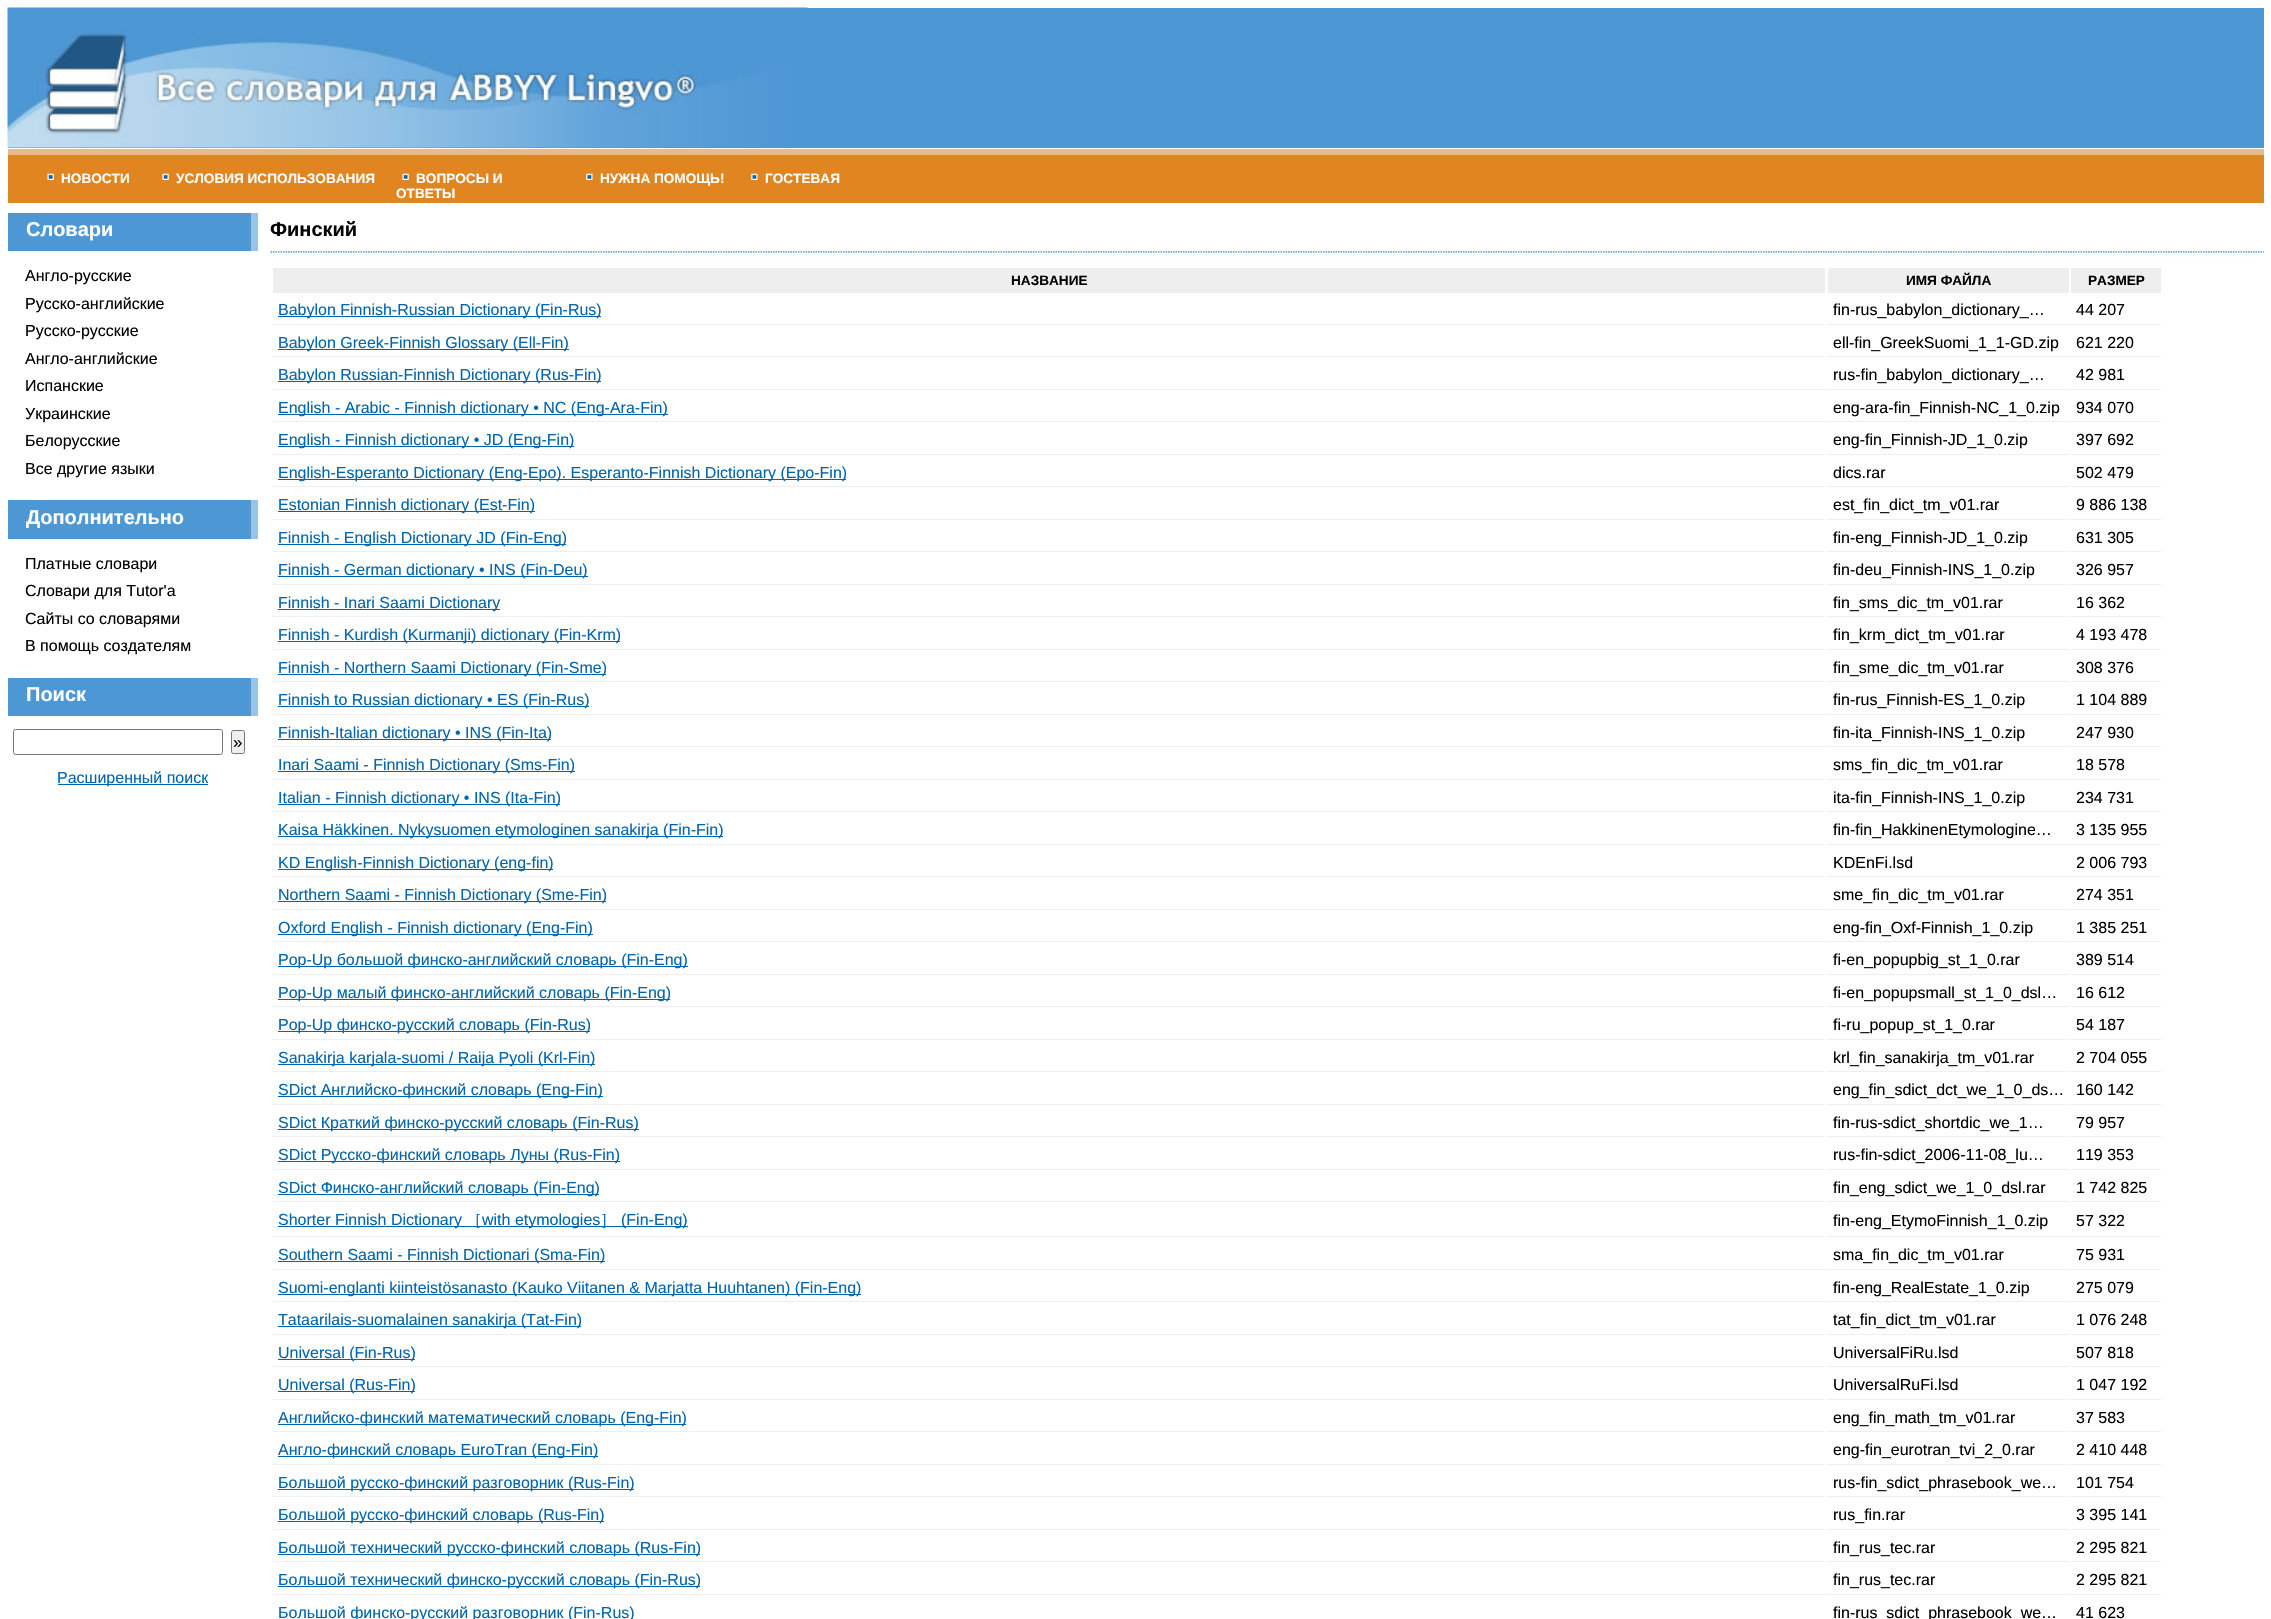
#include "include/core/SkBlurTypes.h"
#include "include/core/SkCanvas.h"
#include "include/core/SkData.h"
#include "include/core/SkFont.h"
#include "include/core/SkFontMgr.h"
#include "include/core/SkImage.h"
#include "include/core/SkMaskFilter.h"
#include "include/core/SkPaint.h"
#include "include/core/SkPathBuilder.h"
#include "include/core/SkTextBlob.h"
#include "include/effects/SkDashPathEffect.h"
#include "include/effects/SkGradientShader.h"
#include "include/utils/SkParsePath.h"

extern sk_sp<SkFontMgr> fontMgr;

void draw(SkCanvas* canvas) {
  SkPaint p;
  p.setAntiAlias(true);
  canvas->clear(SK_ColorWHITE);
  p.setColor(SkColorSetRGB(77, 151, 213));
  canvas->drawRect(SkRect::MakeLTRB(8, 8, 2264, 148), p);
  canvas->drawImageRect(SkImages::DeferredFromEncodedData(SkData::MakeFromFileName("images/1.png")), SkRect::MakeLTRB(7, 7, 808, 148), SkSamplingOptions());
  p.setColor(SkColorSetRGB(224, 133, 31));
  canvas->drawRect(SkRect::MakeLTRB(8, 155, 2264, 203), p);
  p.setColor(SkColorSetRGB(238, 186, 131));
  canvas->drawRect(SkRect::MakeLTRB(8, 149, 2264, 155), p);
  canvas->drawImageRect(SkImages::DeferredFromEncodedData(SkData::MakeFromFileName("images/2.png")), SkRect::MakeLTRB(47, 173, 54, 180), SkSamplingOptions());
  canvas->drawImageRect(SkImages::DeferredFromEncodedData(SkData::MakeFromFileName("images/3.png")), SkRect::MakeLTRB(162, 173, 169, 180), SkSamplingOptions());
  canvas->drawImageRect(SkImages::DeferredFromEncodedData(SkData::MakeFromFileName("images/2.png")), SkRect::MakeLTRB(402, 173, 409, 180), SkSamplingOptions());
  canvas->drawImageRect(SkImages::DeferredFromEncodedData(SkData::MakeFromFileName("images/4.png")), SkRect::MakeLTRB(586, 173, 593, 180), SkSamplingOptions());
  canvas->drawImageRect(SkImages::DeferredFromEncodedData(SkData::MakeFromFileName("images/4.png")), SkRect::MakeLTRB(751, 173, 758, 180), SkSamplingOptions());
  p.setColor(SkColorSetRGB(77, 151, 213));
  canvas->drawRect(SkRect::MakeLTRB(8, 213, 251, 251), p);
  p.setColor(SkColorSetRGB(152, 197, 231));
  canvas->drawRect(SkRect::MakeLTRB(251, 213, 258, 251), p);
  p.setColor(SkColorSetRGB(77, 151, 213));
  canvas->drawRect(SkRect::MakeLTRB(8, 500, 251, 539), p);
  p.setColor(SkColorSetRGB(152, 197, 231));
  canvas->drawRect(SkRect::MakeLTRB(251, 500, 258, 539), p);
  p.setColor(SkColorSetRGB(77, 151, 213));
  canvas->drawRect(SkRect::MakeLTRB(8, 678, 251, 716), p);
  p.setColor(SkColorSetRGB(152, 197, 231));
  canvas->drawRect(SkRect::MakeLTRB(251, 678, 258, 716), p);
  p.setStyle(SkPaint::kStroke_Style);
  p.setStrokeWidth(1);
  p.setColor(SkColorSetRGB(118, 118, 118));
  canvas->drawRoundRect(SkRect::MakeLTRB(13.5f, 729.5f, 222.5f, 754.5f), 2, 2, p);
  p.setStyle(SkPaint::kFill_Style);
  p.setColor(SkColorSetRGB(239, 239, 239));
  canvas->drawRoundRect(SkRect::MakeLTRB(231.5f, 730.5f, 244.5f, 753.5f), 2, 2, p);
  p.setStyle(SkPaint::kStroke_Style);
  p.setColor(SkColorSetRGB(118, 118, 118));
  canvas->drawRoundRect(SkRect::MakeLTRB(231.5f, 730.5f, 244.5f, 753.5f), 2, 2, p);
  p.setStyle(SkPaint::kFill_Style);
  p.setColor(SkColorSetRGB(0, 101, 174));
  canvas->drawRect(SkRect::MakeLTRB(58, 784, 208, 785), p);
  canvas->drawImageRect(SkImages::DeferredFromEncodedData(SkData::MakeFromFileName("images/5.png")), SkRect::MakeLTRB(270, 251, 2264, 253), SkSamplingOptions());
  p.setColor(SkColorSetRGB(238, 238, 238));
  canvas->drawRect(SkRect::MakeLTRB(273, 268, 1825, 293), p);
  canvas->drawRect(SkRect::MakeLTRB(1828, 268, 2069, 293), p);
  canvas->drawRect(SkRect::MakeLTRB(2071, 268, 2161, 293), p);
  canvas->drawRect(SkRect::MakeLTRB(273, 324, 1825, 325), p);
  p.setColor(SkColorSetRGB(0, 101, 174));
  canvas->drawRect(SkRect::MakeLTRB(278, 316, 601, 317), p);
  p.setColor(SkColorSetRGB(238, 238, 238));
  canvas->drawRect(SkRect::MakeLTRB(1828, 324, 2069, 325), p);
  canvas->drawRect(SkRect::MakeLTRB(2071, 324, 2161, 325), p);
  canvas->drawRect(SkRect::MakeLTRB(273, 356, 1825, 357), p);
  p.setColor(SkColorSetRGB(0, 101, 174));
  canvas->drawRect(SkRect::MakeLTRB(278, 349, 569, 350), p);
  p.setColor(SkColorSetRGB(238, 238, 238));
  canvas->drawRect(SkRect::MakeLTRB(1828, 356, 2069, 357), p);
  canvas->drawRect(SkRect::MakeLTRB(2071, 356, 2161, 357), p);
  canvas->drawRect(SkRect::MakeLTRB(273, 389, 1825, 390), p);
  p.setColor(SkColorSetRGB(0, 101, 174));
  canvas->drawRect(SkRect::MakeLTRB(278, 381, 601, 382), p);
  p.setColor(SkColorSetRGB(238, 238, 238));
  canvas->drawRect(SkRect::MakeLTRB(1828, 389, 2069, 390), p);
  canvas->drawRect(SkRect::MakeLTRB(2071, 389, 2161, 390), p);
  canvas->drawRect(SkRect::MakeLTRB(273, 421, 1825, 422), p);
  p.setColor(SkColorSetRGB(0, 101, 174));
  canvas->drawRect(SkRect::MakeLTRB(278, 414, 668, 415), p);
  p.setColor(SkColorSetRGB(238, 238, 238));
  canvas->drawRect(SkRect::MakeLTRB(1828, 421, 2069, 422), p);
  canvas->drawRect(SkRect::MakeLTRB(2071, 421, 2161, 422), p);
  canvas->drawRect(SkRect::MakeLTRB(273, 454, 1825, 455), p);
  p.setColor(SkColorSetRGB(0, 101, 174));
  canvas->drawRect(SkRect::MakeLTRB(278, 446, 574, 447), p);
  p.setColor(SkColorSetRGB(238, 238, 238));
  canvas->drawRect(SkRect::MakeLTRB(1828, 454, 2069, 455), p);
  canvas->drawRect(SkRect::MakeLTRB(2071, 454, 2161, 455), p);
  canvas->drawRect(SkRect::MakeLTRB(273, 486, 1825, 487), p);
  p.setColor(SkColorSetRGB(0, 101, 174));
  canvas->drawRect(SkRect::MakeLTRB(278, 479, 846, 480), p);
  p.setColor(SkColorSetRGB(238, 238, 238));
  canvas->drawRect(SkRect::MakeLTRB(1828, 486, 2069, 487), p);
  canvas->drawRect(SkRect::MakeLTRB(2071, 486, 2161, 487), p);
  canvas->drawRect(SkRect::MakeLTRB(273, 519, 1825, 520), p);
  p.setColor(SkColorSetRGB(0, 101, 174));
  canvas->drawRect(SkRect::MakeLTRB(278, 511, 535, 512), p);
  p.setColor(SkColorSetRGB(238, 238, 238));
  canvas->drawRect(SkRect::MakeLTRB(1828, 519, 2069, 520), p);
  canvas->drawRect(SkRect::MakeLTRB(2071, 519, 2161, 520), p);
  canvas->drawRect(SkRect::MakeLTRB(273, 551, 1825, 552), p);
  p.setColor(SkColorSetRGB(0, 101, 174));
  canvas->drawRect(SkRect::MakeLTRB(278, 544, 566, 545), p);
  p.setColor(SkColorSetRGB(238, 238, 238));
  canvas->drawRect(SkRect::MakeLTRB(1828, 551, 2069, 552), p);
  canvas->drawRect(SkRect::MakeLTRB(2071, 551, 2161, 552), p);
  canvas->drawRect(SkRect::MakeLTRB(273, 584, 1825, 585), p);
  p.setColor(SkColorSetRGB(0, 101, 174));
  canvas->drawRect(SkRect::MakeLTRB(278, 576, 588, 577), p);
  p.setColor(SkColorSetRGB(238, 238, 238));
  canvas->drawRect(SkRect::MakeLTRB(1828, 584, 2069, 585), p);
  canvas->drawRect(SkRect::MakeLTRB(2071, 584, 2161, 585), p);
  canvas->drawRect(SkRect::MakeLTRB(273, 616, 1825, 617), p);
  p.setColor(SkColorSetRGB(0, 101, 174));
  canvas->drawRect(SkRect::MakeLTRB(278, 609, 500, 610), p);
  p.setColor(SkColorSetRGB(238, 238, 238));
  canvas->drawRect(SkRect::MakeLTRB(1828, 616, 2069, 617), p);
  canvas->drawRect(SkRect::MakeLTRB(2071, 616, 2161, 617), p);
  canvas->drawRect(SkRect::MakeLTRB(273, 649, 1825, 650), p);
  p.setColor(SkColorSetRGB(0, 101, 174));
  canvas->drawRect(SkRect::MakeLTRB(278, 641, 620, 642), p);
  p.setColor(SkColorSetRGB(238, 238, 238));
  canvas->drawRect(SkRect::MakeLTRB(1828, 649, 2069, 650), p);
  canvas->drawRect(SkRect::MakeLTRB(2071, 649, 2161, 650), p);
  canvas->drawRect(SkRect::MakeLTRB(273, 681, 1825, 682), p);
  p.setColor(SkColorSetRGB(0, 101, 174));
  canvas->drawRect(SkRect::MakeLTRB(278, 674, 606, 675), p);
  p.setColor(SkColorSetRGB(238, 238, 238));
  canvas->drawRect(SkRect::MakeLTRB(1828, 681, 2069, 682), p);
  canvas->drawRect(SkRect::MakeLTRB(2071, 681, 2161, 682), p);
  canvas->drawRect(SkRect::MakeLTRB(273, 714, 1825, 715), p);
  p.setColor(SkColorSetRGB(0, 101, 174));
  canvas->drawRect(SkRect::MakeLTRB(278, 706, 589, 707), p);
  p.setColor(SkColorSetRGB(238, 238, 238));
  canvas->drawRect(SkRect::MakeLTRB(1828, 714, 2069, 715), p);
  canvas->drawRect(SkRect::MakeLTRB(2071, 714, 2161, 715), p);
  canvas->drawRect(SkRect::MakeLTRB(273, 746, 1825, 747), p);
  p.setColor(SkColorSetRGB(0, 101, 174));
  canvas->drawRect(SkRect::MakeLTRB(278, 739, 551, 740), p);
  p.setColor(SkColorSetRGB(238, 238, 238));
  canvas->drawRect(SkRect::MakeLTRB(1828, 746, 2069, 747), p);
  canvas->drawRect(SkRect::MakeLTRB(2071, 746, 2161, 747), p);
  canvas->drawRect(SkRect::MakeLTRB(273, 779, 1825, 780), p);
  p.setColor(SkColorSetRGB(0, 101, 174));
  canvas->drawRect(SkRect::MakeLTRB(278, 771, 575, 772), p);
  p.setColor(SkColorSetRGB(238, 238, 238));
  canvas->drawRect(SkRect::MakeLTRB(1828, 779, 2069, 780), p);
  canvas->drawRect(SkRect::MakeLTRB(2071, 779, 2161, 780), p);
  canvas->drawRect(SkRect::MakeLTRB(273, 811, 1825, 812), p);
  p.setColor(SkColorSetRGB(0, 101, 174));
  canvas->drawRect(SkRect::MakeLTRB(278, 804, 560, 805), p);
  p.setColor(SkColorSetRGB(238, 238, 238));
  canvas->drawRect(SkRect::MakeLTRB(1828, 811, 2069, 812), p);
  canvas->drawRect(SkRect::MakeLTRB(2071, 811, 2161, 812), p);
  canvas->drawRect(SkRect::MakeLTRB(273, 844, 1825, 845), p);
  p.setColor(SkColorSetRGB(0, 101, 174));
  canvas->drawRect(SkRect::MakeLTRB(278, 836, 723, 837), p);
  p.setColor(SkColorSetRGB(238, 238, 238));
  canvas->drawRect(SkRect::MakeLTRB(1828, 844, 2069, 845), p);
  canvas->drawRect(SkRect::MakeLTRB(2071, 844, 2161, 845), p);
  canvas->drawRect(SkRect::MakeLTRB(273, 876, 1825, 877), p);
  p.setColor(SkColorSetRGB(0, 101, 174));
  canvas->drawRect(SkRect::MakeLTRB(278, 869, 553, 870), p);
  p.setColor(SkColorSetRGB(238, 238, 238));
  canvas->drawRect(SkRect::MakeLTRB(1828, 876, 2069, 877), p);
  canvas->drawRect(SkRect::MakeLTRB(2071, 876, 2161, 877), p);
  canvas->drawRect(SkRect::MakeLTRB(273, 909, 1825, 910), p);
  p.setColor(SkColorSetRGB(0, 101, 174));
  canvas->drawRect(SkRect::MakeLTRB(278, 901, 606, 902), p);
  p.setColor(SkColorSetRGB(238, 238, 238));
  canvas->drawRect(SkRect::MakeLTRB(1828, 909, 2069, 910), p);
  canvas->drawRect(SkRect::MakeLTRB(2071, 909, 2161, 910), p);
  canvas->drawRect(SkRect::MakeLTRB(273, 941, 1825, 942), p);
  p.setColor(SkColorSetRGB(0, 101, 174));
  canvas->drawRect(SkRect::MakeLTRB(278, 934, 593, 935), p);
  p.setColor(SkColorSetRGB(238, 238, 238));
  canvas->drawRect(SkRect::MakeLTRB(1828, 941, 2069, 942), p);
  canvas->drawRect(SkRect::MakeLTRB(2071, 941, 2161, 942), p);
  canvas->drawRect(SkRect::MakeLTRB(273, 974, 1825, 975), p);
  p.setColor(SkColorSetRGB(0, 101, 174));
  canvas->drawRect(SkRect::MakeLTRB(278, 966, 688, 967), p);
  p.setColor(SkColorSetRGB(238, 238, 238));
  canvas->drawRect(SkRect::MakeLTRB(1828, 974, 2069, 975), p);
  canvas->drawRect(SkRect::MakeLTRB(2071, 974, 2161, 975), p);
  canvas->drawRect(SkRect::MakeLTRB(273, 1006, 1825, 1007), p);
  p.setColor(SkColorSetRGB(0, 101, 174));
  canvas->drawRect(SkRect::MakeLTRB(278, 999, 670, 1000), p);
  p.setColor(SkColorSetRGB(238, 238, 238));
  canvas->drawRect(SkRect::MakeLTRB(1828, 1006, 2069, 1007), p);
  canvas->drawRect(SkRect::MakeLTRB(2071, 1006, 2161, 1007), p);
  canvas->drawRect(SkRect::MakeLTRB(273, 1039, 1825, 1040), p);
  p.setColor(SkColorSetRGB(0, 101, 174));
  canvas->drawRect(SkRect::MakeLTRB(278, 1031, 590, 1032), p);
  p.setColor(SkColorSetRGB(238, 238, 238));
  canvas->drawRect(SkRect::MakeLTRB(1828, 1039, 2069, 1040), p);
  canvas->drawRect(SkRect::MakeLTRB(2071, 1039, 2161, 1040), p);
  canvas->drawRect(SkRect::MakeLTRB(273, 1071, 1825, 1072), p);
  p.setColor(SkColorSetRGB(0, 101, 174));
  canvas->drawRect(SkRect::MakeLTRB(278, 1064, 595, 1065), p);
  p.setColor(SkColorSetRGB(238, 238, 238));
  canvas->drawRect(SkRect::MakeLTRB(1828, 1071, 2069, 1072), p);
  canvas->drawRect(SkRect::MakeLTRB(2071, 1071, 2161, 1072), p);
  canvas->drawRect(SkRect::MakeLTRB(273, 1104, 1825, 1105), p);
  p.setColor(SkColorSetRGB(0, 101, 174));
  canvas->drawRect(SkRect::MakeLTRB(278, 1096, 603, 1097), p);
  p.setColor(SkColorSetRGB(238, 238, 238));
  canvas->drawRect(SkRect::MakeLTRB(1828, 1104, 2069, 1105), p);
  canvas->drawRect(SkRect::MakeLTRB(2071, 1104, 2161, 1105), p);
  canvas->drawRect(SkRect::MakeLTRB(273, 1136, 1825, 1137), p);
  p.setColor(SkColorSetRGB(0, 101, 174));
  canvas->drawRect(SkRect::MakeLTRB(278, 1129, 639, 1130), p);
  p.setColor(SkColorSetRGB(238, 238, 238));
  canvas->drawRect(SkRect::MakeLTRB(1828, 1136, 2069, 1137), p);
  canvas->drawRect(SkRect::MakeLTRB(2071, 1136, 2161, 1137), p);
  canvas->drawRect(SkRect::MakeLTRB(273, 1169, 1825, 1170), p);
  p.setColor(SkColorSetRGB(0, 101, 174));
  canvas->drawRect(SkRect::MakeLTRB(278, 1161, 620, 1162), p);
  p.setColor(SkColorSetRGB(238, 238, 238));
  canvas->drawRect(SkRect::MakeLTRB(1828, 1169, 2069, 1170), p);
  canvas->drawRect(SkRect::MakeLTRB(2071, 1169, 2161, 1170), p);
  canvas->drawRect(SkRect::MakeLTRB(273, 1201, 1825, 1202), p);
  p.setColor(SkColorSetRGB(0, 101, 174));
  canvas->drawRect(SkRect::MakeLTRB(278, 1194, 599, 1195), p);
  p.setColor(SkColorSetRGB(238, 238, 238));
  canvas->drawRect(SkRect::MakeLTRB(1828, 1201, 2069, 1202), p);
  canvas->drawRect(SkRect::MakeLTRB(2071, 1201, 2161, 1202), p);
  canvas->drawRect(SkRect::MakeLTRB(273, 1236, 1825, 1237), p);
  p.setColor(SkColorSetRGB(0, 101, 174));
  canvas->drawRect(SkRect::MakeLTRB(278, 1226, 688, 1227), p);
  p.setColor(SkColorSetRGB(238, 238, 238));
  canvas->drawRect(SkRect::MakeLTRB(1828, 1236, 2069, 1237), p);
  canvas->drawRect(SkRect::MakeLTRB(2071, 1236, 2161, 1237), p);
  canvas->drawRect(SkRect::MakeLTRB(273, 1269, 1825, 1270), p);
  p.setColor(SkColorSetRGB(0, 101, 174));
  canvas->drawRect(SkRect::MakeLTRB(278, 1261, 605, 1262), p);
  p.setColor(SkColorSetRGB(238, 238, 238));
  canvas->drawRect(SkRect::MakeLTRB(1828, 1269, 2069, 1270), p);
  canvas->drawRect(SkRect::MakeLTRB(2071, 1269, 2161, 1270), p);
  canvas->drawRect(SkRect::MakeLTRB(273, 1301, 1825, 1302), p);
  p.setColor(SkColorSetRGB(0, 101, 174));
  canvas->drawRect(SkRect::MakeLTRB(278, 1294, 861, 1295), p);
  p.setColor(SkColorSetRGB(238, 238, 238));
  canvas->drawRect(SkRect::MakeLTRB(1828, 1301, 2069, 1302), p);
  canvas->drawRect(SkRect::MakeLTRB(2071, 1301, 2161, 1302), p);
  canvas->drawRect(SkRect::MakeLTRB(273, 1334, 1825, 1335), p);
  p.setColor(SkColorSetRGB(0, 101, 174));
  canvas->drawRect(SkRect::MakeLTRB(278, 1326, 581, 1327), p);
  p.setColor(SkColorSetRGB(238, 238, 238));
  canvas->drawRect(SkRect::MakeLTRB(1828, 1334, 2069, 1335), p);
  canvas->drawRect(SkRect::MakeLTRB(2071, 1334, 2161, 1335), p);
  canvas->drawRect(SkRect::MakeLTRB(273, 1366, 1825, 1367), p);
  p.setColor(SkColorSetRGB(0, 101, 174));
  canvas->drawRect(SkRect::MakeLTRB(278, 1359, 415, 1360), p);
  p.setColor(SkColorSetRGB(238, 238, 238));
  canvas->drawRect(SkRect::MakeLTRB(1828, 1366, 2069, 1367), p);
  canvas->drawRect(SkRect::MakeLTRB(2071, 1366, 2161, 1367), p);
  canvas->drawRect(SkRect::MakeLTRB(273, 1399, 1825, 1400), p);
  p.setColor(SkColorSetRGB(0, 101, 174));
  canvas->drawRect(SkRect::MakeLTRB(278, 1391, 415, 1392), p);
  p.setColor(SkColorSetRGB(238, 238, 238));
  canvas->drawRect(SkRect::MakeLTRB(1828, 1399, 2069, 1400), p);
  canvas->drawRect(SkRect::MakeLTRB(2071, 1399, 2161, 1400), p);
  canvas->drawRect(SkRect::MakeLTRB(273, 1431, 1825, 1432), p);
  p.setColor(SkColorSetRGB(0, 101, 174));
  canvas->drawRect(SkRect::MakeLTRB(278, 1424, 686, 1425), p);
  p.setColor(SkColorSetRGB(238, 238, 238));
  canvas->drawRect(SkRect::MakeLTRB(1828, 1431, 2069, 1432), p);
  canvas->drawRect(SkRect::MakeLTRB(2071, 1431, 2161, 1432), p);
  canvas->drawRect(SkRect::MakeLTRB(273, 1464, 1825, 1465), p);
  p.setColor(SkColorSetRGB(0, 101, 174));
  canvas->drawRect(SkRect::MakeLTRB(278, 1456, 598, 1457), p);
  p.setColor(SkColorSetRGB(238, 238, 238));
  canvas->drawRect(SkRect::MakeLTRB(1828, 1464, 2069, 1465), p);
  canvas->drawRect(SkRect::MakeLTRB(2071, 1464, 2161, 1465), p);
  canvas->drawRect(SkRect::MakeLTRB(273, 1496, 1825, 1497), p);
  p.setColor(SkColorSetRGB(0, 101, 174));
  canvas->drawRect(SkRect::MakeLTRB(278, 1489, 634, 1490), p);
  p.setColor(SkColorSetRGB(238, 238, 238));
  canvas->drawRect(SkRect::MakeLTRB(1828, 1496, 2069, 1497), p);
  canvas->drawRect(SkRect::MakeLTRB(2071, 1496, 2161, 1497), p);
  canvas->drawRect(SkRect::MakeLTRB(273, 1529, 1825, 1530), p);
  p.setColor(SkColorSetRGB(0, 101, 174));
  canvas->drawRect(SkRect::MakeLTRB(278, 1521, 604, 1522), p);
  p.setColor(SkColorSetRGB(238, 238, 238));
  canvas->drawRect(SkRect::MakeLTRB(1828, 1529, 2069, 1530), p);
  canvas->drawRect(SkRect::MakeLTRB(2071, 1529, 2161, 1530), p);
  canvas->drawRect(SkRect::MakeLTRB(273, 1561, 1825, 1562), p);
  p.setColor(SkColorSetRGB(0, 101, 174));
  canvas->drawRect(SkRect::MakeLTRB(278, 1554, 700, 1555), p);
  p.setColor(SkColorSetRGB(238, 238, 238));
  canvas->drawRect(SkRect::MakeLTRB(1828, 1561, 2069, 1562), p);
  canvas->drawRect(SkRect::MakeLTRB(2071, 1561, 2161, 1562), p);
  canvas->drawRect(SkRect::MakeLTRB(273, 1594, 1825, 1595), p);
  p.setColor(SkColorSetRGB(0, 101, 174));
  canvas->drawRect(SkRect::MakeLTRB(278, 1586, 700, 1587), p);
  p.setColor(SkColorSetRGB(238, 238, 238));
  canvas->drawRect(SkRect::MakeLTRB(1828, 1594, 2069, 1595), p);
  canvas->drawRect(SkRect::MakeLTRB(2071, 1594, 2161, 1595), p);
  SkFont font1(fontMgr->matchFamilyStyle("Liberation Sans", SkFontStyle::Bold()), 13.6f);
  font1.setSubpixel(true);
  p.setColor(SK_ColorWHITE);
  canvas->drawString("НОВОСТИ", 61, 183, font1, p);
  canvas->drawString("УСЛОВИЯ ИСПОЛЬЗОВАНИЯ", 176, 183, font1, p);
  canvas->drawString("ВОПРОСЫ И", 416, 183, font1, p);
  canvas->drawString("ОТВЕТЫ", 396, 198, font1, p);
  canvas->drawString("НУЖНА ПОМОЩЬ!", 600, 183, font1, p);
  canvas->drawString("ГОСТЕВАЯ", 765, 183, font1, p);
  SkFont font2(fontMgr->matchFamilyStyle("Liberation Sans", SkFontStyle::Bold()), 20);
  font2.setSubpixel(true);
  canvas->drawString("Словари", 26, 236, font2, p);
  SkFont font3(fontMgr->matchFamilyStyle("Liberation Sans", SkFontStyle::Normal()), 16);
  font3.setSubpixel(true);
  p.setColor(SK_ColorBLACK);
  canvas->drawString("Англо-русские", 25, 281, font3, p);
  canvas->drawString("Русско-английские", 25, 309, font3, p);
  canvas->drawString("Русско-русские", 25, 336, font3, p);
  canvas->drawString("Англо-английские", 25, 364, font3, p);
  canvas->drawString("Испанские", 25, 391, font3, p);
  canvas->drawString("Украинские", 25, 419, font3, p);
  canvas->drawString("Белорусские", 25, 446, font3, p);
  canvas->drawString("Все другие языки", 25, 474, font3, p);
  p.setColor(SK_ColorWHITE);
  canvas->drawString("Дополнительно", 26, 524, font2, p);
  p.setColor(SK_ColorBLACK);
  canvas->drawString("Платные словари", 25, 569, font3, p);
  canvas->drawString("Словари для Tutor'а", 25, 596, font3, p);
  canvas->drawString("Сайты со словарями", 25, 624, font3, p);
  canvas->drawString("В помощь создателям", 25, 651, font3, p);
  p.setColor(SK_ColorWHITE);
  canvas->drawString("Поиск", 26, 701, font2, p);
  SkFont font4(fontMgr->matchFamilyStyle("Liberation Sans", SkFontStyle::Normal()), 17);
  font4.setSubpixel(true);
  p.setColor(SK_ColorBLACK);
  canvas->drawString("»", 233, 748, font4, p);
  p.setColor(SkColorSetRGB(0, 101, 174));
  canvas->drawString("Расширенный поиск", 57, 783, font3, p);
  p.setColor(SK_ColorBLACK);
  canvas->drawString("Финский", 270, 236, font2, p);
  canvas->drawString("НАЗВАНИЕ", 1011, 285, font1, p);
  canvas->drawString("ИМЯ ФАЙЛА", 1906, 285, font1, p);
  canvas->drawString("РАЗМЕР", 2088, 285, font1, p);
  p.setColor(SkColorSetRGB(0, 101, 174));
  canvas->drawString("Babylon Finnish-Russian Dictionary (Fin-Rus)", 278, 315, font3, p);
  p.setColor(SK_ColorBLACK);
  canvas->drawString("fin-rus_babylon_dictionary_…", 1833, 315, font3, p);
  canvas->drawString("44 207", 2076, 315, font3, p);
  p.setColor(SkColorSetRGB(0, 101, 174));
  canvas->drawString("Babylon Greek-Finnish Glossary (Ell-Fin)", 278, 348, font3, p);
  p.setColor(SK_ColorBLACK);
  canvas->drawString("ell-fin_GreekSuomi_1_1-GD.zip", 1833, 348, font3, p);
  canvas->drawString("621 220", 2076, 348, font3, p);
  p.setColor(SkColorSetRGB(0, 101, 174));
  canvas->drawString("Babylon Russian-Finnish Dictionary (Rus-Fin)", 278, 380, font3, p);
  p.setColor(SK_ColorBLACK);
  canvas->drawString("rus-fin_babylon_dictionary_…", 1833, 380, font3, p);
  canvas->drawString("42 981", 2076, 380, font3, p);
  p.setColor(SkColorSetRGB(0, 101, 174));
  canvas->drawString("English - Arabic - Finnish dictionary • NC (Eng-Ara-Fin)", 278, 413, font3, p);
  p.setColor(SK_ColorBLACK);
  canvas->drawString("eng-ara-fin_Finnish-NC_1_0.zip", 1833, 413, font3, p);
  canvas->drawString("934 070", 2076, 413, font3, p);
  p.setColor(SkColorSetRGB(0, 101, 174));
  canvas->drawString("English - Finnish dictionary • JD (Eng-Fin)", 278, 445, font3, p);
  p.setColor(SK_ColorBLACK);
  canvas->drawString("eng-fin_Finnish-JD_1_0.zip", 1833, 445, font3, p);
  canvas->drawString("397 692", 2076, 445, font3, p);
  p.setColor(SkColorSetRGB(0, 101, 174));
  canvas->drawString("English-Esperanto Dictionary (Eng-Epo). Esperanto-Finnish Dictionary (Epo-Fin)", 278, 478, font3, p);
  p.setColor(SK_ColorBLACK);
  canvas->drawString("dics.rar", 1833, 478, font3, p);
  canvas->drawString("502 479", 2076, 478, font3, p);
  p.setColor(SkColorSetRGB(0, 101, 174));
  canvas->drawString("Estonian Finnish dictionary (Est-Fin)", 278, 510, font3, p);
  p.setColor(SK_ColorBLACK);
  canvas->drawString("est_fin_dict_tm_v01.rar", 1833, 510, font3, p);
  canvas->drawString("9 886 138", 2076, 510, font3, p);
  p.setColor(SkColorSetRGB(0, 101, 174));
  canvas->drawString("Finnish - English Dictionary JD (Fin-Eng)", 278, 543, font3, p);
  p.setColor(SK_ColorBLACK);
  canvas->drawString("fin-eng_Finnish-JD_1_0.zip", 1833, 543, font3, p);
  canvas->drawString("631 305", 2076, 543, font3, p);
  p.setColor(SkColorSetRGB(0, 101, 174));
  canvas->drawString("Finnish - German dictionary • INS (Fin-Deu)", 278, 575, font3, p);
  p.setColor(SK_ColorBLACK);
  canvas->drawString("fin-deu_Finnish-INS_1_0.zip", 1833, 575, font3, p);
  canvas->drawString("326 957", 2076, 575, font3, p);
  p.setColor(SkColorSetRGB(0, 101, 174));
  canvas->drawString("Finnish - Inari Saami Dictionary", 278, 608, font3, p);
  p.setColor(SK_ColorBLACK);
  canvas->drawString("fin_sms_dic_tm_v01.rar", 1833, 608, font3, p);
  canvas->drawString("16 362", 2076, 608, font3, p);
  p.setColor(SkColorSetRGB(0, 101, 174));
  canvas->drawString("Finnish - Kurdish (Kurmanji) dictionary (Fin-Krm)", 278, 640, font3, p);
  p.setColor(SK_ColorBLACK);
  canvas->drawString("fin_krm_dict_tm_v01.rar", 1833, 640, font3, p);
  canvas->drawString("4 193 478", 2076, 640, font3, p);
  p.setColor(SkColorSetRGB(0, 101, 174));
  canvas->drawString("Finnish - Northern Saami Dictionary (Fin-Sme)", 278, 673, font3, p);
  p.setColor(SK_ColorBLACK);
  canvas->drawString("fin_sme_dic_tm_v01.rar", 1833, 673, font3, p);
  canvas->drawString("308 376", 2076, 673, font3, p);
  p.setColor(SkColorSetRGB(0, 101, 174));
  canvas->drawString("Finnish to Russian dictionary • ES (Fin-Rus)", 278, 705, font3, p);
  p.setColor(SK_ColorBLACK);
  canvas->drawString("fin-rus_Finnish-ES_1_0.zip", 1833, 705, font3, p);
  canvas->drawString("1 104 889", 2076, 705, font3, p);
  p.setColor(SkColorSetRGB(0, 101, 174));
  canvas->drawString("Finnish-Italian dictionary • INS (Fin-Ita)", 278, 738, font3, p);
  p.setColor(SK_ColorBLACK);
  canvas->drawString("fin-ita_Finnish-INS_1_0.zip", 1833, 738, font3, p);
  canvas->drawString("247 930", 2076, 738, font3, p);
  p.setColor(SkColorSetRGB(0, 101, 174));
  canvas->drawString("Inari Saami - Finnish Dictionary (Sms-Fin)", 278, 770, font3, p);
  p.setColor(SK_ColorBLACK);
  canvas->drawString("sms_fin_dic_tm_v01.rar", 1833, 770, font3, p);
  canvas->drawString("18 578", 2076, 770, font3, p);
  p.setColor(SkColorSetRGB(0, 101, 174));
  canvas->drawString("Italian - Finnish dictionary • INS (Ita-Fin)", 278, 803, font3, p);
  p.setColor(SK_ColorBLACK);
  canvas->drawString("ita-fin_Finnish-INS_1_0.zip", 1833, 803, font3, p);
  canvas->drawString("234 731", 2076, 803, font3, p);
  p.setColor(SkColorSetRGB(0, 101, 174));
  canvas->drawString("Kaisa Häkkinen. Nykysuomen etymologinen sanakirja (Fin-Fin)", 278, 835, font3, p);
  p.setColor(SK_ColorBLACK);
  canvas->drawString("fin-fin_HakkinenEtymologine…", 1833, 835, font3, p);
  canvas->drawString("3 135 955", 2076, 835, font3, p);
  p.setColor(SkColorSetRGB(0, 101, 174));
  canvas->drawString("KD English-Finnish Dictionary (eng-fin)", 278, 868, font3, p);
  p.setColor(SK_ColorBLACK);
  canvas->drawString("KDEnFi.lsd", 1833, 868, font3, p);
  canvas->drawString("2 006 793", 2076, 868, font3, p);
  p.setColor(SkColorSetRGB(0, 101, 174));
  canvas->drawString("Northern Saami - Finnish Dictionary (Sme-Fin)", 278, 900, font3, p);
  p.setColor(SK_ColorBLACK);
  canvas->drawString("sme_fin_dic_tm_v01.rar", 1833, 900, font3, p);
  canvas->drawString("274 351", 2076, 900, font3, p);
  p.setColor(SkColorSetRGB(0, 101, 174));
  canvas->drawString("Oxford English - Finnish dictionary (Eng-Fin)", 278, 933, font3, p);
  p.setColor(SK_ColorBLACK);
  canvas->drawString("eng-fin_Oxf-Finnish_1_0.zip", 1833, 933, font3, p);
  canvas->drawString("1 385 251", 2076, 933, font3, p);
  p.setColor(SkColorSetRGB(0, 101, 174));
  canvas->drawString("Pop-Up большой финско-английский словарь (Fin-Eng)", 278, 965, font3, p);
  p.setColor(SK_ColorBLACK);
  canvas->drawString("fi-en_popupbig_st_1_0.rar", 1833, 965, font3, p);
  canvas->drawString("389 514", 2076, 965, font3, p);
  p.setColor(SkColorSetRGB(0, 101, 174));
  canvas->drawString("Pop-Up малый финско-английский словарь (Fin-Eng)", 278, 998, font3, p);
  p.setColor(SK_ColorBLACK);
  canvas->drawString("fi-en_popupsmall_st_1_0_dsl…", 1833, 998, font3, p);
  canvas->drawString("16 612", 2076, 998, font3, p);
  p.setColor(SkColorSetRGB(0, 101, 174));
  canvas->drawString("Pop-Up финско-русский словарь (Fin-Rus)", 278, 1030, font3, p);
  p.setColor(SK_ColorBLACK);
  canvas->drawString("fi-ru_popup_st_1_0.rar", 1833, 1030, font3, p);
  canvas->drawString("54 187", 2076, 1030, font3, p);
  p.setColor(SkColorSetRGB(0, 101, 174));
  canvas->drawString("Sanakirja karjala-suomi / Raija Pyoli (Krl-Fin)", 278, 1063, font3, p);
  p.setColor(SK_ColorBLACK);
  canvas->drawString("krl_fin_sanakirja_tm_v01.rar", 1833, 1063, font3, p);
  canvas->drawString("2 704 055", 2076, 1063, font3, p);
  p.setColor(SkColorSetRGB(0, 101, 174));
  canvas->drawString("SDict Английско-финский словарь (Eng-Fin)", 278, 1095, font3, p);
  p.setColor(SK_ColorBLACK);
  canvas->drawString("eng_fin_sdict_dct_we_1_0_ds…", 1833, 1095, font3, p);
  canvas->drawString("160 142", 2076, 1095, font3, p);
  p.setColor(SkColorSetRGB(0, 101, 174));
  canvas->drawString("SDict Краткий финско-русский словарь (Fin-Rus)", 278, 1128, font3, p);
  p.setColor(SK_ColorBLACK);
  canvas->drawString("fin-rus-sdict_shortdic_we_1…", 1833, 1128, font3, p);
  canvas->drawString("79 957", 2076, 1128, font3, p);
  p.setColor(SkColorSetRGB(0, 101, 174));
  canvas->drawString("SDict Русско-финский словарь Луны (Rus-Fin)", 278, 1160, font3, p);
  p.setColor(SK_ColorBLACK);
  canvas->drawString("rus-fin-sdict_2006-11-08_lu…", 1833, 1160, font3, p);
  canvas->drawString("119 353", 2076, 1160, font3, p);
  p.setColor(SkColorSetRGB(0, 101, 174));
  canvas->drawString("SDict Финско-английский словарь (Fin-Eng)", 278, 1193, font3, p);
  p.setColor(SK_ColorBLACK);
  canvas->drawString("fin_eng_sdict_we_1_0_dsl.rar", 1833, 1193, font3, p);
  canvas->drawString("1 742 825", 2076, 1193, font3, p);
  p.setColor(SkColorSetRGB(0, 101, 174));
  canvas->drawString("Shorter Finnish Dictionary", 278, 1225, font3, p);
  SkFont font5(fontMgr->matchFamilyStyle("WenQuanYi Zen Hei", SkFontStyle(500, SkFontStyle::kNormal_Width, SkFontStyle::kUpright_Slant)), 16);
  font5.setSubpixel(true);
  canvas->drawString("［", 466, 1225, font5, p);
  canvas->drawString("with etymologies", 482, 1225, font3, p);
  canvas->drawString("］", 600, 1225, font5, p);
  canvas->drawString("(Fin-Eng)", 621, 1225, font3, p);
  p.setColor(SK_ColorBLACK);
  canvas->drawString("fin-eng_EtymoFinnish_1_0.zip", 1833, 1226, font3, p);
  canvas->drawString("57 322", 2076, 1226, font3, p);
  p.setColor(SkColorSetRGB(0, 101, 174));
  canvas->drawString("Southern Saami - Finnish Dictionari (Sma-Fin)", 278, 1260, font3, p);
  p.setColor(SK_ColorBLACK);
  canvas->drawString("sma_fin_dic_tm_v01.rar", 1833, 1260, font3, p);
  canvas->drawString("75 931", 2076, 1260, font3, p);
  p.setColor(SkColorSetRGB(0, 101, 174));
  canvas->drawString("Suomi-englanti kiinteistösanasto (Kauko Viitanen & Marjatta Huuhtanen) (Fin-Eng)", 278, 1293, font3, p);
  p.setColor(SK_ColorBLACK);
  canvas->drawString("fin-eng_RealEstate_1_0.zip", 1833, 1293, font3, p);
  canvas->drawString("275 079", 2076, 1293, font3, p);
  p.setColor(SkColorSetRGB(0, 101, 174));
  canvas->drawString("Tataarilais-suomalainen sanakirja (Tat-Fin)", 278, 1325, font3, p);
  p.setColor(SK_ColorBLACK);
  canvas->drawString("tat_fin_dict_tm_v01.rar", 1833, 1325, font3, p);
  canvas->drawString("1 076 248", 2076, 1325, font3, p);
  p.setColor(SkColorSetRGB(0, 101, 174));
  canvas->drawString("Universal (Fin-Rus)", 278, 1358, font3, p);
  p.setColor(SK_ColorBLACK);
  canvas->drawString("UniversalFiRu.lsd", 1833, 1358, font3, p);
  canvas->drawString("507 818", 2076, 1358, font3, p);
  p.setColor(SkColorSetRGB(0, 101, 174));
  canvas->drawString("Universal (Rus-Fin)", 278, 1390, font3, p);
  p.setColor(SK_ColorBLACK);
  canvas->drawString("UniversalRuFi.lsd", 1833, 1390, font3, p);
  canvas->drawString("1 047 192", 2076, 1390, font3, p);
  p.setColor(SkColorSetRGB(0, 101, 174));
  canvas->drawString("Английско-финский математический словарь (Eng-Fin)", 278, 1423, font3, p);
  p.setColor(SK_ColorBLACK);
  canvas->drawString("eng_fin_math_tm_v01.rar", 1833, 1423, font3, p);
  canvas->drawString("37 583", 2076, 1423, font3, p);
  p.setColor(SkColorSetRGB(0, 101, 174));
  canvas->drawString("Англо-финский словарь EuroTran (Eng-Fin)", 278, 1455, font3, p);
  p.setColor(SK_ColorBLACK);
  canvas->drawString("eng-fin_eurotran_tvi_2_0.rar", 1833, 1455, font3, p);
  canvas->drawString("2 410 448", 2076, 1455, font3, p);
  p.setColor(SkColorSetRGB(0, 101, 174));
  canvas->drawString("Большой русско-финский разговорник (Rus-Fin)", 278, 1488, font3, p);
  p.setColor(SK_ColorBLACK);
  canvas->drawString("rus-fin_sdict_phrasebook_we…", 1833, 1488, font3, p);
  canvas->drawString("101 754", 2076, 1488, font3, p);
  p.setColor(SkColorSetRGB(0, 101, 174));
  canvas->drawString("Большой русско-финский словарь (Rus-Fin)", 278, 1520, font3, p);
  p.setColor(SK_ColorBLACK);
  canvas->drawString("rus_fin.rar", 1833, 1520, font3, p);
  canvas->drawString("3 395 141", 2076, 1520, font3, p);
  p.setColor(SkColorSetRGB(0, 101, 174));
  canvas->drawString("Большой технический русско-финский словарь (Rus-Fin)", 278, 1553, font3, p);
  p.setColor(SK_ColorBLACK);
  canvas->drawString("fin_rus_tec.rar", 1833, 1553, font3, p);
  canvas->drawString("2 295 821", 2076, 1553, font3, p);
  p.setColor(SkColorSetRGB(0, 101, 174));
  canvas->drawString("Большой технический финско-русский словарь (Fin-Rus)", 278, 1585, font3, p);
  p.setColor(SK_ColorBLACK);
  canvas->drawString("fin_rus_tec.rar", 1833, 1585, font3, p);
  canvas->drawString("2 295 821", 2076, 1585, font3, p);
  p.setColor(SkColorSetRGB(0, 101, 174));
  canvas->drawString("Большой финско-русский разговорник (Fin-Rus)", 278, 1618, font3, p);
  p.setColor(SK_ColorBLACK);
  canvas->drawString("fin-rus_sdict_phrasebook_we…", 1833, 1618, font3, p);
  canvas->drawString("41 623", 2076, 1618, font3, p);
}
